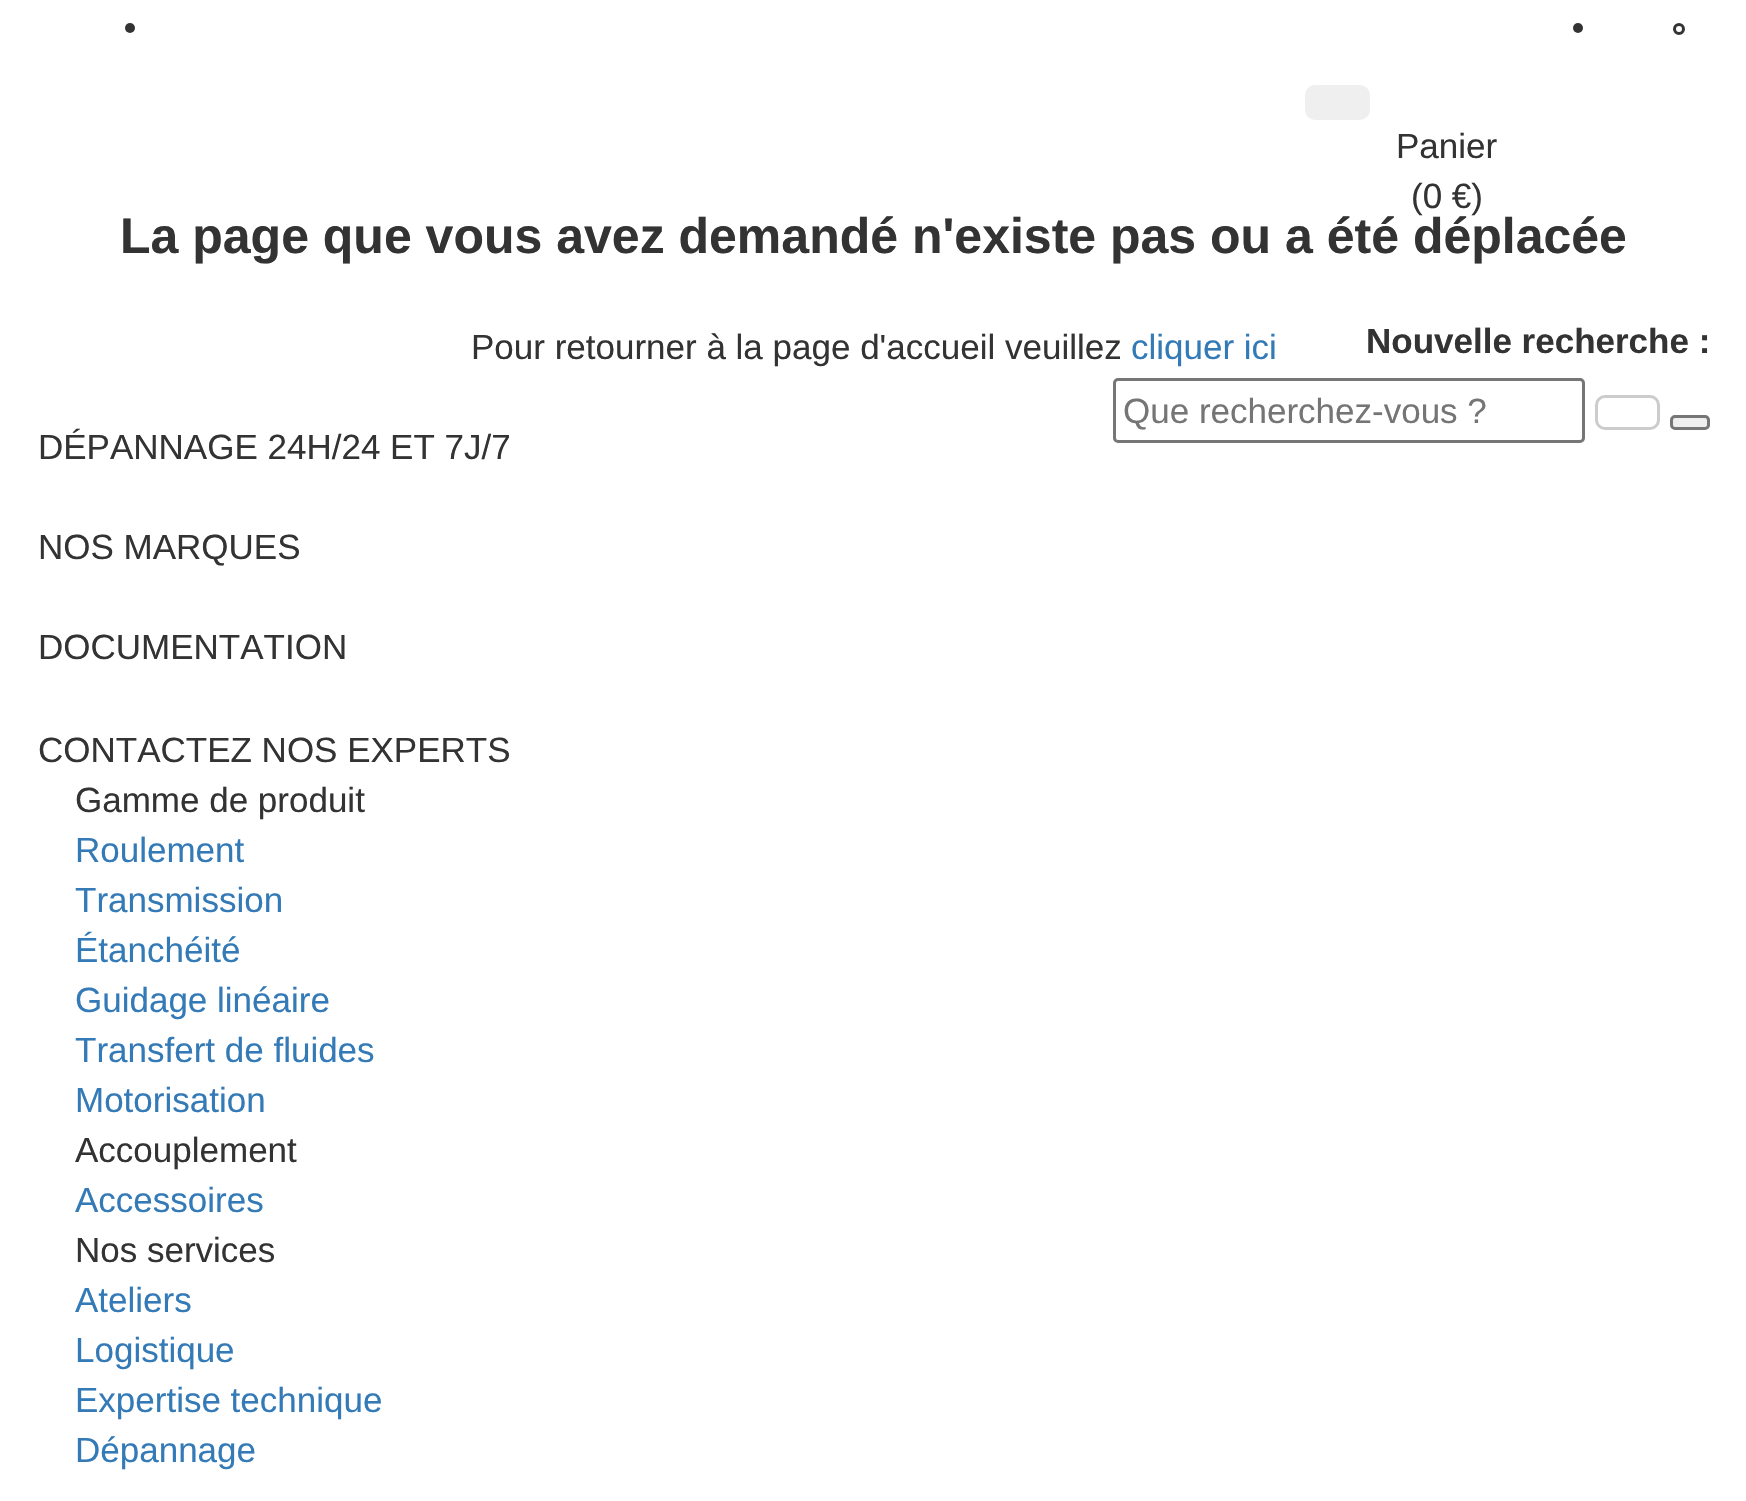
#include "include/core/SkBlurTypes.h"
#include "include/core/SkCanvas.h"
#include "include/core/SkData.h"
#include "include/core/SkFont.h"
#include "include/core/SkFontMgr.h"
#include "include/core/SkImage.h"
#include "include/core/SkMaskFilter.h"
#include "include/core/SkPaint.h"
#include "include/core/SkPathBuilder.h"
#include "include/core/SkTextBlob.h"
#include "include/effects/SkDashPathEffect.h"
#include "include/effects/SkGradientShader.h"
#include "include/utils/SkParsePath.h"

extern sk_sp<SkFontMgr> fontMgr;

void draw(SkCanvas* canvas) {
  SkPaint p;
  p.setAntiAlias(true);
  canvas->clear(SK_ColorWHITE);
  p.setColor(SkColorSetRGB(51, 51, 51));
  canvas->drawCircle(130, 28, 5, p);
  canvas->drawCircle(1578, 28, 5, p);
  p.setStyle(SkPaint::kStroke_Style);
  p.setStrokeWidth(3);
  canvas->drawCircle(1679, 29, 4.5f, p);
  p.setStyle(SkPaint::kFill_Style);
  p.setColor(SkColorSetRGB(239, 239, 239));
  canvas->drawRoundRect(SkRect::MakeLTRB(1305, 85, 1370, 120), 10, 10, p);
  p.setStyle(SkPaint::kStroke_Style);
  p.setColor(SkColorSetRGB(118, 118, 118));
  canvas->drawRoundRect(SkRect::MakeLTRB(1114.5f, 379.5f, 1583.5f, 441.5f), 3.5f, 3.5f, p);
  p.setColor(SkColorSetRGB(204, 204, 204));
  canvas->drawRoundRect(SkRect::MakeLTRB(1596.5f, 396.5f, 1658.5f, 428.5f), 8.5f, 8.5f, p);
  p.setStyle(SkPaint::kFill_Style);
  p.setColor(SkColorSetRGB(239, 239, 239));
  canvas->drawRoundRect(SkRect::MakeLTRB(1671.5f, 416.5f, 1708.5f, 428.5f), 3.5f, 3.5f, p);
  p.setStyle(SkPaint::kStroke_Style);
  p.setColor(SkColorSetRGB(118, 118, 118));
  canvas->drawRoundRect(SkRect::MakeLTRB(1671.5f, 416.5f, 1708.5f, 428.5f), 3.5f, 3.5f, p);
  SkFont font1(fontMgr->matchFamilyStyle("Liberation Sans", SkFontStyle::Normal()), 35);
  font1.setSubpixel(true);
  p.setStyle(SkPaint::kFill_Style);
  p.setColor(SkColorSetRGB(51, 51, 51));
  canvas->drawString("Panier", 1396, 158, font1, p);
  canvas->drawString("(0 €)", 1411, 208, font1, p);
  SkFont font2(fontMgr->matchFamilyStyle("Liberation Sans", SkFontStyle::Bold()), 35);
  font2.setSubpixel(true);
  canvas->drawString("Nouvelle recherche :", 1366, 353, font2, p);
  p.setColor(SkColorSetRGB(117, 117, 117));
  canvas->drawString("Que recherchez-vous ?", 1123, 423, font1, p);
  SkFont font3(fontMgr->matchFamilyStyle("Liberation Sans", SkFontStyle::Bold()), 50);
  font3.setSubpixel(true);
  p.setColor(SkColorSetRGB(51, 51, 51));
  canvas->drawString("La page que vous avez demandé n'existe pas ou a été déplacée", 120, 253, font3, p);
  canvas->drawString("Pour retourner à la page d'accueil veuillez", 471, 359, font1, p);
  p.setColor(SkColorSetRGB(51, 122, 183));
  canvas->drawString("cliquer ici", 1131, 359, font1, p);
  p.setColor(SkColorSetRGB(51, 51, 51));
  canvas->drawString("DÉPANNAGE 24H/24 ET 7J/7", 38, 459, font1, p);
  canvas->drawString("NOS MARQUES", 38, 559, font1, p);
  canvas->drawString("DOCUMENTATION", 38, 659, font1, p);
  canvas->drawString("CONTACTEZ NOS EXPERTS", 38, 762, font1, p);
  canvas->drawString("Gamme de produit", 75, 812, font1, p);
  p.setColor(SkColorSetRGB(51, 122, 183));
  canvas->drawString("Roulement", 75, 862, font1, p);
  canvas->drawString("Transmission", 75, 912, font1, p);
  canvas->drawString("Étanchéité", 75, 962, font1, p);
  canvas->drawString("Guidage linéaire", 75, 1012, font1, p);
  canvas->drawString("Transfert de fluides", 75, 1062, font1, p);
  canvas->drawString("Motorisation", 75, 1112, font1, p);
  p.setColor(SkColorSetRGB(51, 51, 51));
  canvas->drawString("Accouplement", 75, 1162, font1, p);
  p.setColor(SkColorSetRGB(51, 122, 183));
  canvas->drawString("Accessoires", 75, 1212, font1, p);
  p.setColor(SkColorSetRGB(51, 51, 51));
  canvas->drawString("Nos services", 75, 1262, font1, p);
  p.setColor(SkColorSetRGB(51, 122, 183));
  canvas->drawString("Ateliers", 75, 1312, font1, p);
  canvas->drawString("Logistique", 75, 1362, font1, p);
  canvas->drawString("Expertise technique", 75, 1412, font1, p);
  canvas->drawString("Dépannage", 75, 1462, font1, p);
}
